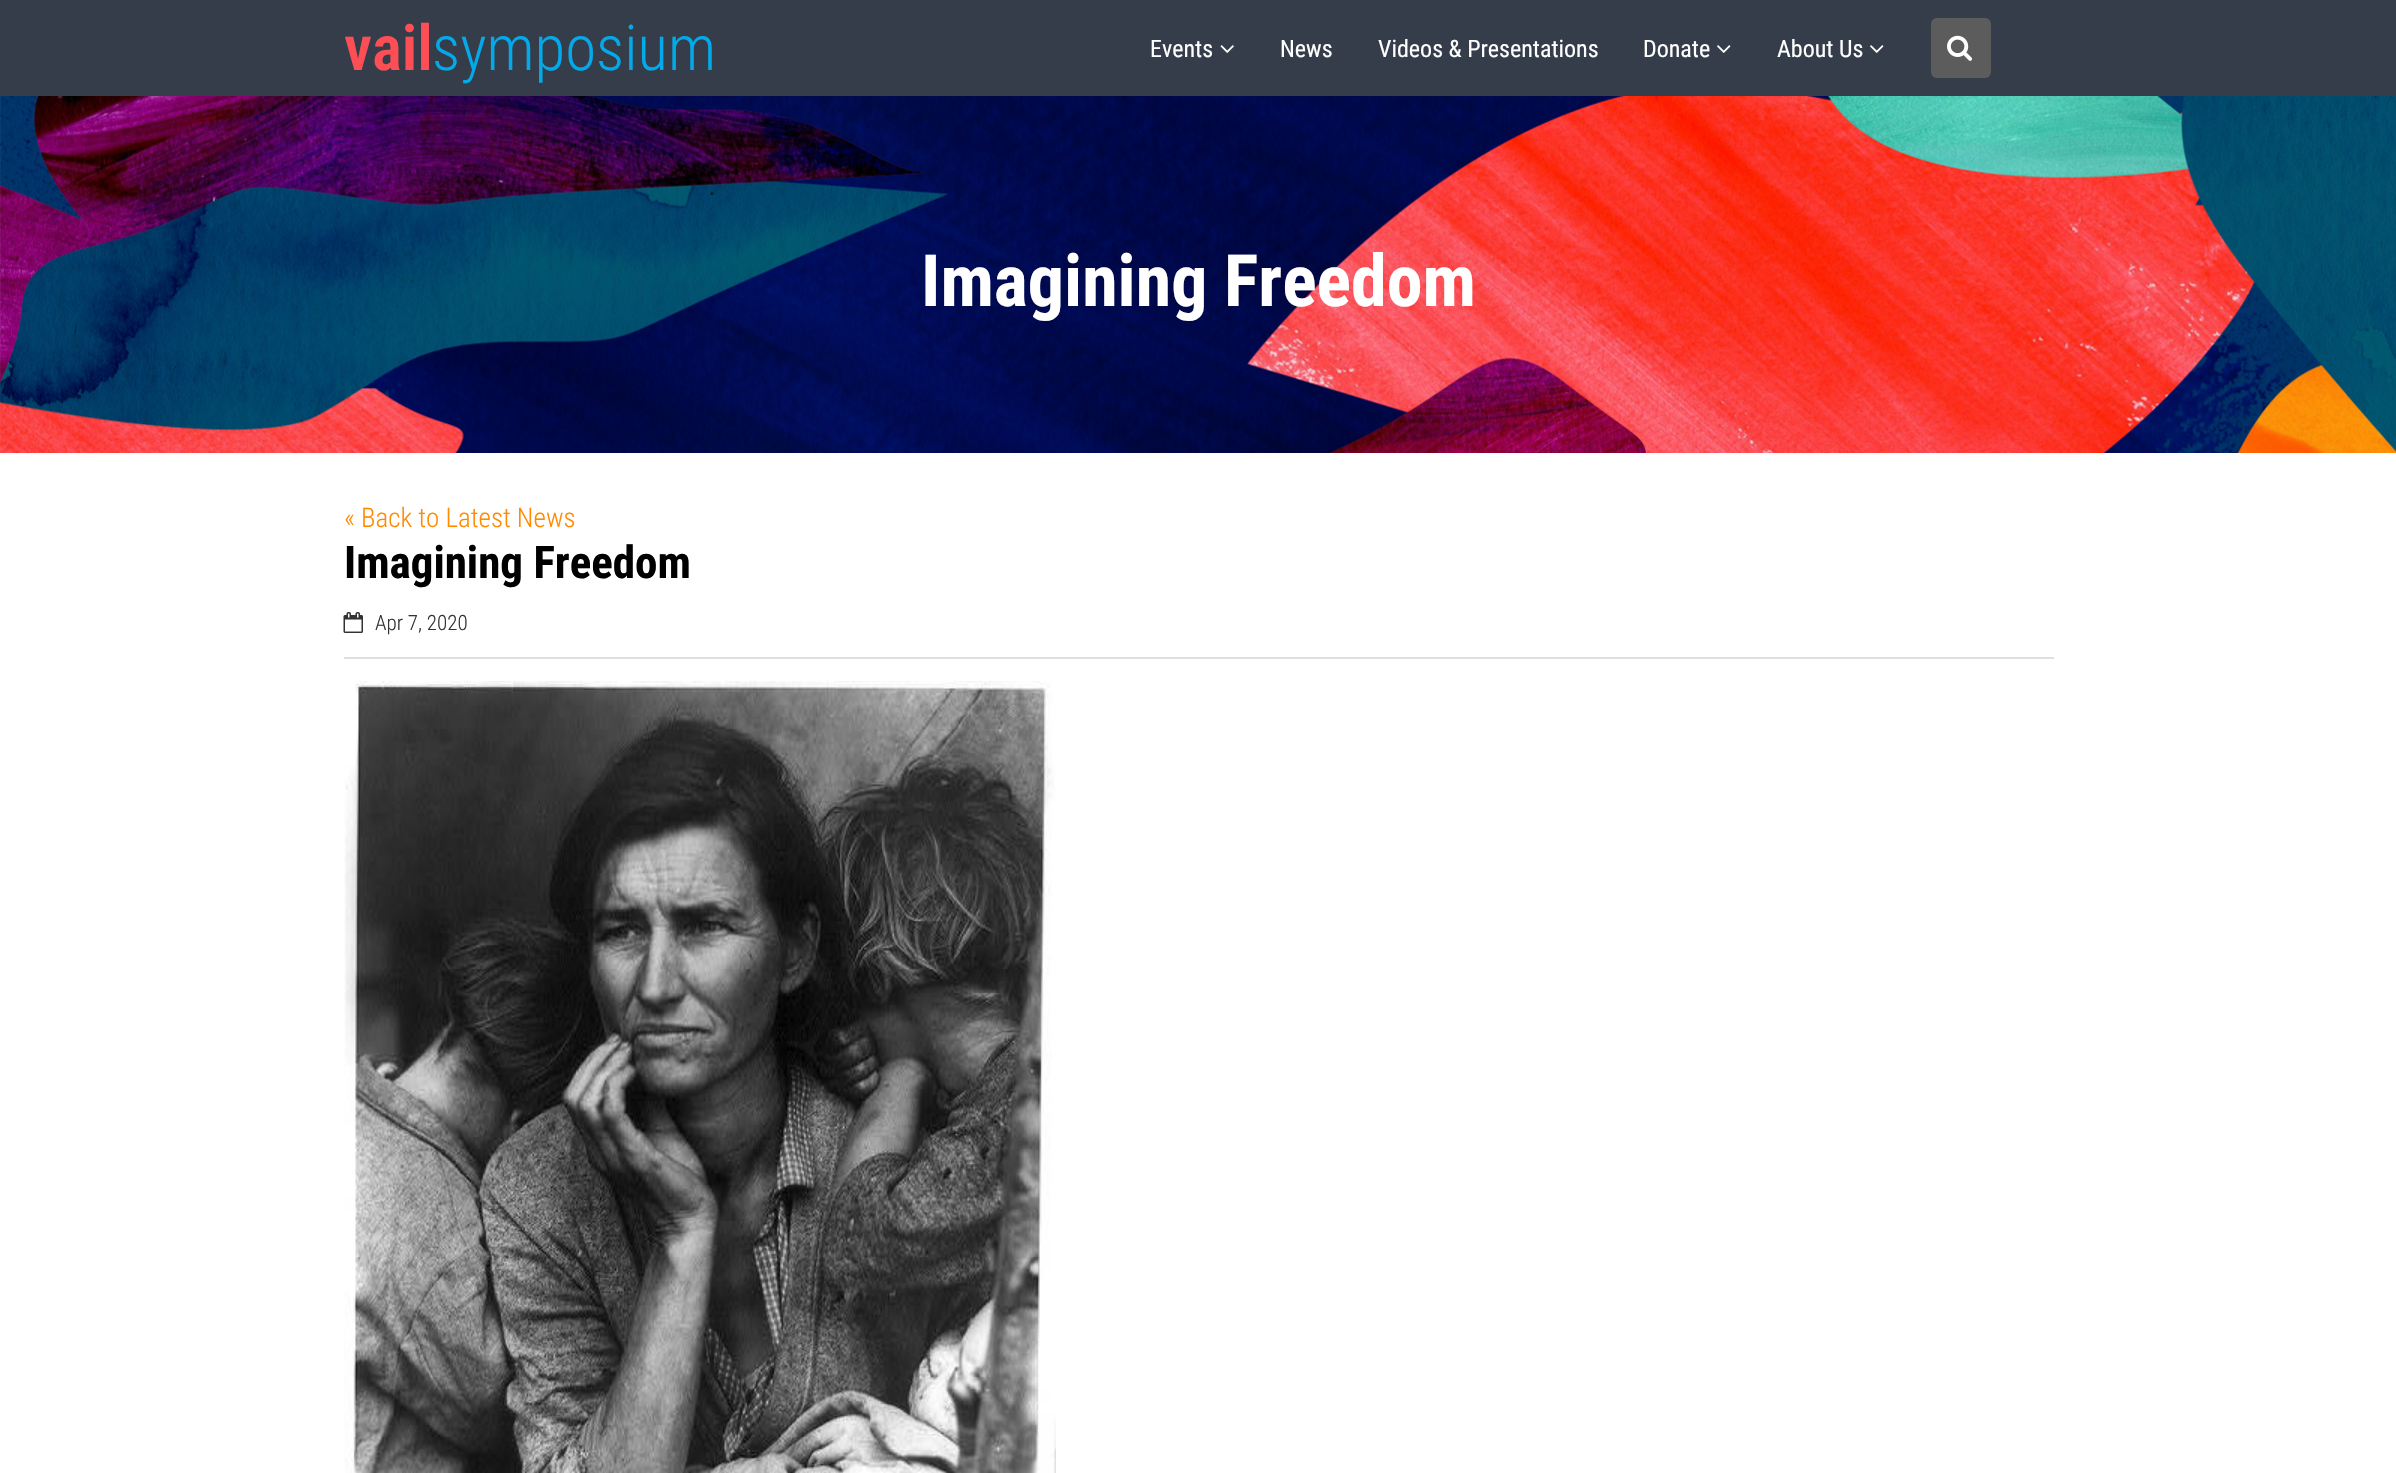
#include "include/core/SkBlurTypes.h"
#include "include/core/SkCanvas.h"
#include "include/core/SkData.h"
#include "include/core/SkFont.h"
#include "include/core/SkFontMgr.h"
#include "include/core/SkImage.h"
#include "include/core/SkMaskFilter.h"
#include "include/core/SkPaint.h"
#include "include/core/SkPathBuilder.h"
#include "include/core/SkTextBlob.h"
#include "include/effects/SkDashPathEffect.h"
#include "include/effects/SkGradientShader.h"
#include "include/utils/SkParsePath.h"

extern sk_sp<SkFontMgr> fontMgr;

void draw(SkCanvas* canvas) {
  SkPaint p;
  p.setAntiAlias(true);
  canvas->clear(SK_ColorWHITE);
  p.setColor(SkColorSetRGB(52, 61, 73));
  canvas->drawRect(SkRect::MakeLTRB(0, 0, 2396, 96), p);
  canvas->drawImageRect(SkImages::DeferredFromEncodedData(SkData::MakeFromFileName("images/1.png")), SkRect::MakeLTRB(1220, 45, 1234, 53), SkSamplingOptions());
  canvas->drawImageRect(SkImages::DeferredFromEncodedData(SkData::MakeFromFileName("images/2.png")), SkRect::MakeLTRB(1717, 45, 1731, 53), SkSamplingOptions());
  canvas->drawImageRect(SkImages::DeferredFromEncodedData(SkData::MakeFromFileName("images/2.png")), SkRect::MakeLTRB(1870, 45, 1884, 53), SkSamplingOptions());
  p.setColor(SkColorSetRGB(93, 92, 92));
  canvas->drawRoundRect(SkRect::MakeLTRB(1931, 18, 1991, 78), 6, 6, p);
  canvas->drawImageRect(SkImages::DeferredFromEncodedData(SkData::MakeFromFileName("images/3.png")), SkRect::MakeLTRB(1947, 35, 1972, 61), SkSamplingOptions());
  canvas->drawImageRect(SkImages::DeferredFromEncodedData(SkData::MakeFromFileName("images/4.png")), SkRect::MakeLTRB(0, 96, 2396, 453), SkSamplingOptions());
  canvas->drawImageRect(SkImages::DeferredFromEncodedData(SkData::MakeFromFileName("images/5.png")), SkRect::MakeLTRB(343, 612, 363, 633), SkSamplingOptions());
  p.setColor(SkColorSetRGB(223, 223, 223));
  canvas->drawRect(SkRect::MakeLTRB(344, 657, 2054, 659), p);
  canvas->drawImageRect(SkImages::DeferredFromEncodedData(SkData::MakeFromFileName("images/6.png")), SkRect::MakeLTRB(344, 681, 1056, 1473), SkSamplingOptions());
  SkFont font1(fontMgr->matchFamilyStyle("Roboto Condensed", SkFontStyle(600, SkFontStyle::kNormal_Width, SkFontStyle::kUpright_Slant)), 63);
  font1.setSubpixel(true);
  p.setColor(SkColorSetRGB(253, 78, 85));
  canvas->drawString("vail", 344, 70, font1, p);
  SkFont font2(fontMgr->matchFamilyStyle("Roboto Condensed", SkFontStyle(300, SkFontStyle::kNormal_Width, SkFontStyle::kUpright_Slant)), 63);
  font2.setSubpixel(true);
  p.setColor(SkColorSetRGB(3, 169, 232));
  canvas->drawString("symposium", 432, 70, font2, p);
  SkFont font3(fontMgr->matchFamilyStyle("Roboto Condensed", SkFontStyle::Normal()), 24);
  font3.setSubpixel(true);
  p.setColor(SK_ColorWHITE);
  canvas->drawString("Events", 1150, 57, font3, p);
  canvas->drawString("News", 1280, 57, font3, p);
  canvas->drawString("Videos & Presentations", 1378, 57, font3, p);
  canvas->drawString("Donate", 1643, 57, font3, p);
  canvas->drawString("About Us", 1777, 57, font3, p);
  SkFont font4(fontMgr->matchFamilyStyle("Roboto Condensed", SkFontStyle::Bold()), 72);
  font4.setSubpixel(true);
  canvas->drawString("Imagining Freedom", 921, 306, font4, p);
  SkFont font5(fontMgr->matchFamilyStyle("Roboto Condensed", SkFontStyle(300, SkFontStyle::kNormal_Width, SkFontStyle::kUpright_Slant)), 27);
  font5.setSubpixel(true);
  p.setColor(SkColorSetRGB(255, 138, 0));
  canvas->drawString("« Back to Latest News", 344, 527, font5, p);
  SkFont font6(fontMgr->matchFamilyStyle("Roboto Condensed", SkFontStyle::Bold()), 45);
  font6.setSubpixel(true);
  p.setColor(SK_ColorBLACK);
  canvas->drawString("Imagining Freedom", 344, 578, font6, p);
  SkFont font7(fontMgr->matchFamilyStyle("Roboto Condensed", SkFontStyle(300, SkFontStyle::kNormal_Width, SkFontStyle::kUpright_Slant)), 21);
  font7.setSubpixel(true);
  p.setColor(SkColorSetRGB(51, 51, 51));
  canvas->drawString("Apr 7, 2020", 375, 630, font7, p);
}
